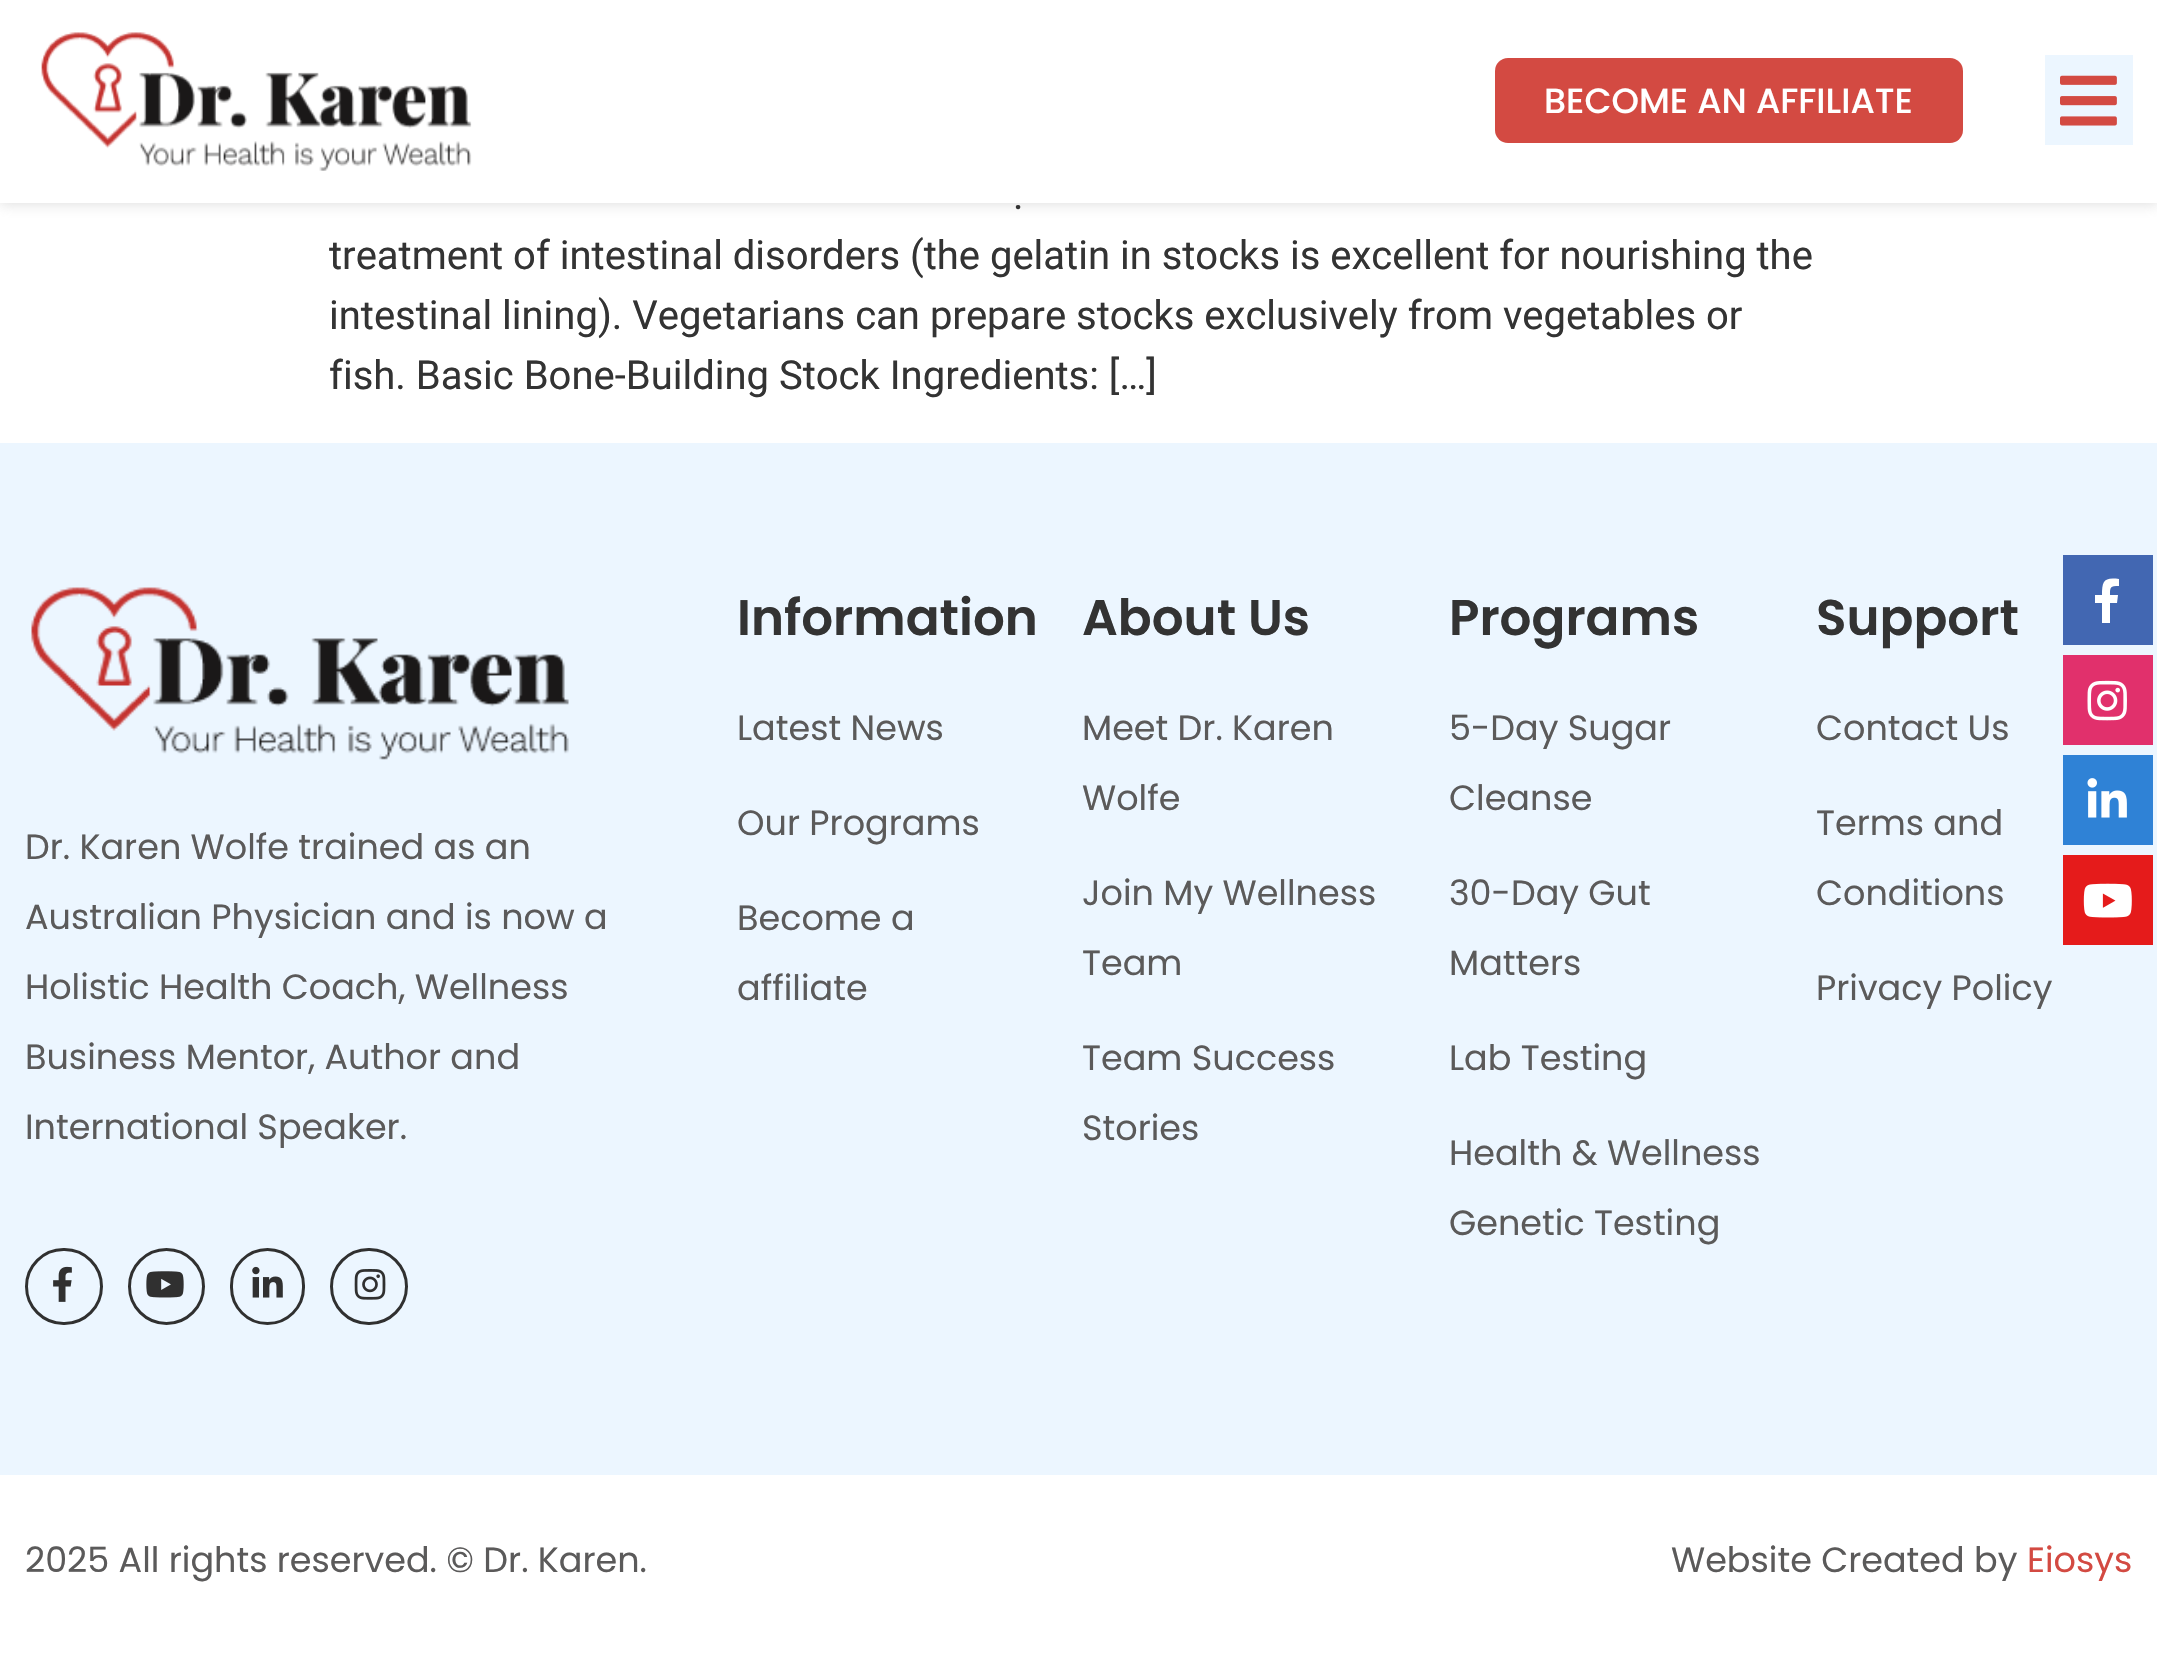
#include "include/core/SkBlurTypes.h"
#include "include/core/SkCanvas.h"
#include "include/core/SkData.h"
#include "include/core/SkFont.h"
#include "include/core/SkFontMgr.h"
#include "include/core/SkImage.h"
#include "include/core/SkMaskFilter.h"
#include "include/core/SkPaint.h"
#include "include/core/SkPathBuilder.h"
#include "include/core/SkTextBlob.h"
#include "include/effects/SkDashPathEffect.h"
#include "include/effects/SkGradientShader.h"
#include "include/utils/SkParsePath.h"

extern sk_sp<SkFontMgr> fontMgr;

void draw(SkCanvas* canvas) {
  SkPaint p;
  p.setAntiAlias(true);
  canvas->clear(SK_ColorWHITE);
  p.setColor(SkColorSetARGB(117, 190, 190, 190));
  p.setMaskFilter(SkMaskFilter::MakeBlur(kNormal_SkBlurStyle, 6));
  canvas->drawRect(SkRect::MakeLTRB(0, 3, 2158, 205), p);
  p.setMaskFilter(nullptr);
  p.setColor(SK_ColorWHITE);
  canvas->drawRect(SkRect::MakeLTRB(0, 0, 2157, 203), p);
  canvas->drawImageRect(SkImages::DeferredFromEncodedData(SkData::MakeFromFileName("images/1.png")), SkRect::MakeLTRB(41, 32, 472, 171), SkSamplingOptions());
  p.setColor(SkColorSetRGB(211, 74, 66));
  canvas->drawRoundRect(SkRect::MakeLTRB(1495, 58, 1963, 143), 13, 13, p);
  p.setColor(SkColorSetRGB(236, 246, 255));
  canvas->drawRect(SkRect::MakeLTRB(2045, 55, 2133, 145), p);
  canvas->drawImageRect(SkImages::DeferredFromEncodedData(SkData::MakeFromFileName("images/2.png")), SkRect::MakeLTRB(2060, 75, 2117, 126), SkSamplingOptions());
  canvas->drawRect(SkRect::MakeLTRB(0, 443, 2157, 1475), p);
  p.setColor(SkColorSetRGB(66, 103, 178));
  canvas->drawRect(SkRect::MakeLTRB(2063, 555, 2153, 645), p);
  p.setColor(SK_ColorWHITE);
  canvas->drawPath(SkPathBuilder().moveTo(2117, 603).lineTo(2110, 603).lineTo(2110, 623).lineTo(2102, 623).lineTo(2102, 603).lineTo(2095, 603).lineTo(2095, 595).lineTo(2102, 595).cubicTo(2102, 581, 2104, 577, 2119, 579).lineTo(2119, 586).cubicTo(2110, 586, 2110, 587, 2110, 595).lineTo(2118, 595).close().detach(), p);
  p.setColor(SkColorSetRGB(225, 48, 108));
  canvas->drawRect(SkRect::MakeLTRB(2063, 655, 2153, 745), p);
  canvas->drawImageRect(SkImages::DeferredFromEncodedData(SkData::MakeFromFileName("images/3.png")), SkRect::MakeLTRB(2087, 680, 2127, 721), SkSamplingOptions());
  p.setColor(SkColorSetRGB(47, 130, 214));
  canvas->drawRect(SkRect::MakeLTRB(2063, 755, 2153, 845), p);
  canvas->drawImageRect(SkImages::DeferredFromEncodedData(SkData::MakeFromFileName("images/4.png")), SkRect::MakeLTRB(2087, 778, 2127, 818), SkSamplingOptions());
  p.setColor(SkColorSetRGB(229, 27, 27));
  canvas->drawRect(SkRect::MakeLTRB(2063, 855, 2153, 945), p);
  canvas->drawImageRect(SkImages::DeferredFromEncodedData(SkData::MakeFromFileName("images/5.png")), SkRect::MakeLTRB(2083, 883, 2132, 918), SkSamplingOptions());
  canvas->drawImageRect(SkImages::DeferredFromEncodedData(SkData::MakeFromFileName("images/6.png")), SkRect::MakeLTRB(31, 587, 569, 760), SkSamplingOptions());
  p.setStyle(SkPaint::kStroke_Style);
  p.setStrokeWidth(3);
  p.setColor(SkColorSetRGB(48, 48, 48));
  canvas->drawRoundRect(SkRect::MakeLTRB(26.5f, 1249.5f, 101.5f, 1323.5f), 37, 37, p);
  canvas->drawImageRect(SkImages::DeferredFromEncodedData(SkData::MakeFromFileName("images/7.png")), SkRect::MakeLTRB(53, 1266, 72, 1302), SkSamplingOptions());
  canvas->drawCircle(166.5f, 1286.5f, 37, p);
  canvas->drawImageRect(SkImages::DeferredFromEncodedData(SkData::MakeFromFileName("images/8.png")), SkRect::MakeLTRB(146, 1271, 184, 1298), SkSamplingOptions());
  canvas->drawRoundRect(SkRect::MakeLTRB(231.5f, 1249.5f, 303.5f, 1323.5f), 36, 36, p);
  canvas->drawImageRect(SkImages::DeferredFromEncodedData(SkData::MakeFromFileName("images/9.png")), SkRect::MakeLTRB(252, 1266, 283, 1298), SkSamplingOptions());
  canvas->drawRoundRect(SkRect::MakeLTRB(331.5f, 1249.5f, 406.5f, 1323.5f), 37, 37, p);
  canvas->drawImageRect(SkImages::DeferredFromEncodedData(SkData::MakeFromFileName("images/10.png")), SkRect::MakeLTRB(354, 1269, 386, 1300), SkSamplingOptions());
  SkFont font1(fontMgr->matchFamilyStyle("Poppins", SkFontStyle(500, SkFontStyle::kNormal_Width, SkFontStyle::kUpright_Slant)), 35);
  font1.setSubpixel(true);
  p.setStyle(SkPaint::kFill_Style);
  p.setColor(SK_ColorWHITE);
  canvas->drawString("BECOME AN AFFILIATE", 1544, 113, font1, p);
  SkFont font2(fontMgr->matchFamilyStyle("Roboto", SkFontStyle::Normal()), 40);
  font2.setSubpixel(true);
  p.setColor(SkColorSetRGB(51, 51, 51));
  canvas->drawString(".", 1013, 209, font2, p);
  canvas->drawString("treatment of intestinal disorders (the gelatin in stocks is excellent for nourishing the", 329, 269, font2, p);
  canvas->drawString("intestinal lining). Vegetarians can prepare stocks exclusively from vegetables or", 329, 329, font2, p);
  canvas->drawString("fish. Basic Bone-Building Stock Ingredients: […]", 329, 389, font2, p);
  SkFont font3(fontMgr->matchFamilyStyle("Poppins", SkFontStyle::Normal()), 35);
  font3.setSubpixel(true);
  p.setColor(SkColorSetRGB(91, 90, 90));
  canvas->drawString("Dr. Karen Wolfe trained as an", 25, 859, font3, p);
  canvas->drawString("Australian Physician and is now a", 25, 929, font3, p);
  canvas->drawString("Holistic Health Coach, Wellness", 25, 999, font3, p);
  canvas->drawString("Business Mentor, Author and", 25, 1069, font3, p);
  canvas->drawString("International Speaker.", 25, 1139, font3, p);
  SkFont font4(fontMgr->matchFamilyStyle("Poppins", SkFontStyle(600, SkFontStyle::kNormal_Width, SkFontStyle::kUpright_Slant)), 50);
  font4.setSubpixel(true);
  p.setColor(SkColorSetRGB(51, 51, 51));
  canvas->drawString("Information", 737, 635, font4, p);
  p.setColor(SkColorSetRGB(91, 90, 90));
  canvas->drawString("Latest News", 737, 740, font3, p);
  canvas->drawString("Our Programs", 737, 835, font3, p);
  canvas->drawString("Become a", 737, 930, font3, p);
  canvas->drawString("affiliate", 737, 1000, font3, p);
  p.setColor(SkColorSetRGB(51, 51, 51));
  canvas->drawString("About Us", 1082, 635, font4, p);
  p.setColor(SkColorSetRGB(91, 90, 90));
  canvas->drawString("Meet Dr. Karen", 1082, 740, font3, p);
  canvas->drawString("Wolfe", 1082, 810, font3, p);
  canvas->drawString("Join My Wellness", 1082, 905, font3, p);
  canvas->drawString("Team", 1082, 975, font3, p);
  canvas->drawString("Team Success", 1082, 1070, font3, p);
  canvas->drawString("Stories", 1082, 1140, font3, p);
  p.setColor(SkColorSetRGB(51, 51, 51));
  canvas->drawString("Programs", 1449, 635, font4, p);
  p.setColor(SkColorSetRGB(91, 90, 90));
  canvas->drawString("5-Day Sugar", 1449, 740, font3, p);
  canvas->drawString("Cleanse", 1449, 810, font3, p);
  canvas->drawString("30-Day Gut", 1449, 905, font3, p);
  canvas->drawString("Matters", 1449, 975, font3, p);
  canvas->drawString("Lab Testing", 1449, 1070, font3, p);
  canvas->drawString("Health & Wellness", 1449, 1165, font3, p);
  canvas->drawString("Genetic Testing", 1449, 1235, font3, p);
  p.setColor(SkColorSetRGB(51, 51, 51));
  canvas->drawString("Support", 1816, 635, font4, p);
  p.setColor(SkColorSetRGB(91, 90, 90));
  canvas->drawString("Contact Us", 1816, 740, font3, p);
  canvas->drawString("Terms and", 1816, 835, font3, p);
  canvas->drawString("Conditions", 1816, 905, font3, p);
  canvas->drawString("Privacy Policy", 1816, 1000, font3, p);
  canvas->drawString("2025 All rights reserved. © Dr. Karen.", 25, 1572, font3, p);
  canvas->drawString("Website Created by", 1671, 1572, font3, p);
  p.setColor(SkColorSetRGB(211, 74, 66));
  canvas->drawString("Eiosys", 2027, 1572, font3, p);
}
